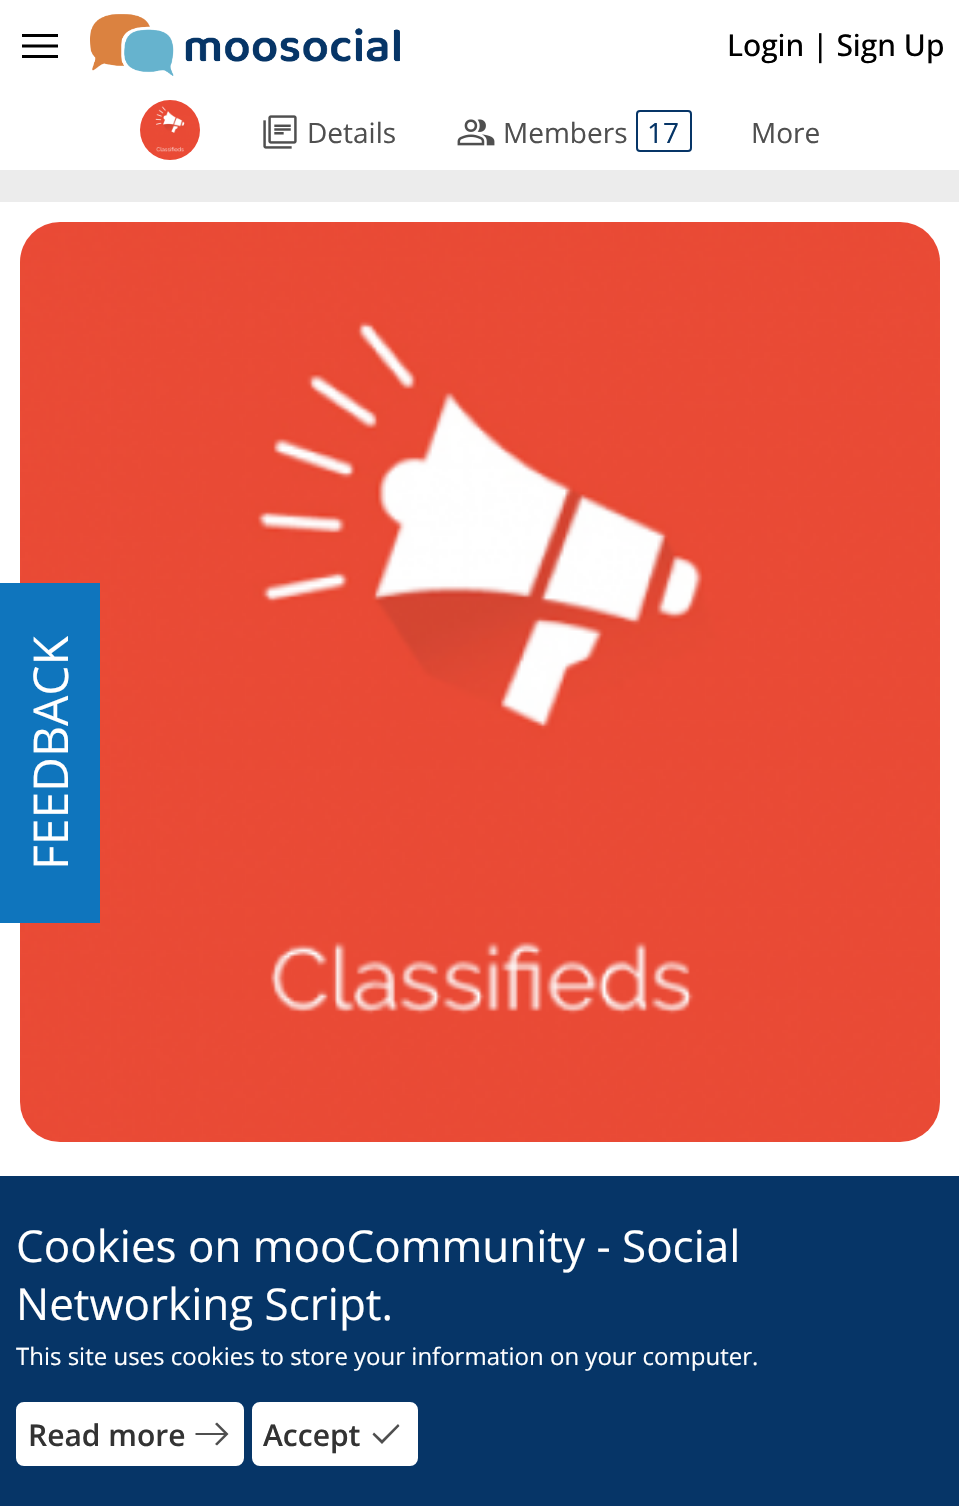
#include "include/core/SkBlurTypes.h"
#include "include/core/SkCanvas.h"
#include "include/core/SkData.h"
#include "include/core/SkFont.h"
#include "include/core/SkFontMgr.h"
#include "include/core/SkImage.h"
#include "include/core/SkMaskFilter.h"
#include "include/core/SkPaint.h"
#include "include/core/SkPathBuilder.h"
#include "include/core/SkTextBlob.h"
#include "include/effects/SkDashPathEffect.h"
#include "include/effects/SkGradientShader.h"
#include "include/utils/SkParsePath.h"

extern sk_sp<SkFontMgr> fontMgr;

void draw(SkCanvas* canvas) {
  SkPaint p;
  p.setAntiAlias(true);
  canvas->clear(SkColorSetRGB(236, 236, 236));
  p.setColor(SK_ColorWHITE);
  canvas->drawRect(SkRect::MakeLTRB(0, 0, 959, 170), p);
  p.setColor(SK_ColorBLACK);
  canvas->drawPath(SkPathBuilder().moveTo(22, 58).lineTo(22, 55).lineTo(58, 55).lineTo(58, 58).close().moveTo(22, 47.5f).lineTo(22, 44.5f).lineTo(58, 44.5f).lineTo(58, 47.5f).close().moveTo(22, 37).lineTo(22, 34).lineTo(58, 34).lineTo(58, 37).close().detach(), p);
  canvas->drawImageRect(SkImages::DeferredFromEncodedData(SkData::MakeFromFileName("images/1.png")), SkRect::MakeLTRB(90, 14, 400, 76), SkSamplingOptions());
  p.setColor(SK_ColorWHITE);
  canvas->drawRect(SkRect::MakeLTRB(0, 202, 959, 1176), p);
  canvas->drawImageRect(SkImages::DeferredFromEncodedData(SkData::MakeFromFileName("images/2.png")), SkRect::MakeLTRB(140, 100, 200, 160), SkSamplingOptions());
  canvas->drawImageRect(SkImages::DeferredFromEncodedData(SkData::MakeFromFileName("images/3.png")), SkRect::MakeLTRB(263, 115, 297, 149), SkSamplingOptions());
  canvas->drawImageRect(SkImages::DeferredFromEncodedData(SkData::MakeFromFileName("images/4.png")), SkRect::MakeLTRB(457, 119, 495, 146), SkSamplingOptions());
  p.setStyle(SkPaint::kStroke_Style);
  p.setStrokeWidth(2);
  p.setColor(SkColorSetRGB(6, 53, 103));
  canvas->drawRoundRect(SkRect::MakeLTRB(637, 111, 691, 151), 3, 3, p);
  canvas->drawImageRect(SkImages::DeferredFromEncodedData(SkData::MakeFromFileName("images/5.png")), SkRect::MakeLTRB(20, 222, 940, 1142), SkSamplingOptions());
  p.setStyle(SkPaint::kFill_Style);
  p.setColor(SkColorSetRGB(15, 117, 189));
  canvas->drawRect(SkRect::MakeLTRB(0, 583, 100, 923), p);
  p.setColor(SkColorSetRGB(6, 53, 103));
  canvas->drawRect(SkRect::MakeLTRB(0, 1176, 959, 1506), p);
  p.setColor(SK_ColorWHITE);
  canvas->drawRoundRect(SkRect::MakeLTRB(17, 1403, 243, 1465), 7, 7, p);
  p.setStyle(SkPaint::kStroke_Style);
  canvas->drawRoundRect(SkRect::MakeLTRB(17, 1403, 243, 1465), 7, 7, p);
  p.setStyle(SkPaint::kFill_Style);
  p.setColor(SkColorSetRGB(79, 79, 79));
  canvas->drawPath(SkPathBuilder().moveTo(217, 1445.5f).lineTo(215, 1444).lineTo(224, 1435).lineTo(195.5f, 1435).lineTo(195.5f, 1433).lineTo(224, 1433).lineTo(215, 1424).lineTo(217, 1422.5f).lineTo(228.5f, 1434).close().detach(), p);
  p.setColor(SK_ColorWHITE);
  canvas->drawRoundRect(SkRect::MakeLTRB(253, 1403, 417, 1465), 7, 7, p);
  p.setStyle(SkPaint::kStroke_Style);
  canvas->drawRoundRect(SkRect::MakeLTRB(253, 1403, 417, 1465), 7, 7, p);
  p.setStyle(SkPaint::kFill_Style);
  p.setColor(SkColorSetRGB(79, 79, 79));
  canvas->drawPath(SkPathBuilder().moveTo(382, 1444).lineTo(372.5f, 1434.5f).lineTo(374, 1432.5f).lineTo(382, 1440).lineTo(398, 1424).lineTo(399.5f, 1426).close().detach(), p);
  SkFont font1(fontMgr->matchFamilyStyle("Open Sans", SkFontStyle(500, SkFontStyle::kNormal_Width, SkFontStyle::kUpright_Slant)), 30);
  font1.setSubpixel(true);
  p.setColor(SK_ColorBLACK);
  canvas->drawString("Login | Sign Up", 727, 56, font1, p);
  SkFont font2(fontMgr->matchFamilyStyle("Open Sans", SkFontStyle::Normal()), 28);
  font2.setSubpixel(true);
  p.setColor(SkColorSetRGB(79, 79, 79));
  canvas->drawString("Details", 307, 143, font2, p);
  canvas->drawString("Members", 503, 143, font2, p);
  p.setColor(SkColorSetRGB(6, 53, 103));
  canvas->drawString("17", 647, 143, font2, p);
  p.setColor(SkColorSetRGB(79, 79, 79));
  canvas->drawString("More", 751, 143, font2, p);
  SkFont font3(fontMgr->matchFamilyStyle("Open Sans", SkFontStyle::Normal()), 48);
  font3.setSubpixel(true);
  p.setColor(SK_ColorWHITE);
  canvas->save();
  canvas->rotate(-90, 68, 870);
  canvas->drawString("FEEDBACK", 68, 870, font3, p);
  canvas->restore();
  SkFont font4(fontMgr->matchFamilyStyle("Open Sans", SkFontStyle::Normal()), 44);
  font4.setSubpixel(true);
  canvas->drawString("Cookies on mooCommunity - Social", 16, 1262, font4, p);
  canvas->drawString("Networking Script.", 16, 1320, font4, p);
  SkFont font5(fontMgr->matchFamilyStyle("Open Sans", SkFontStyle::Normal()), 24);
  font5.setSubpixel(true);
  canvas->drawString("This site uses cookies to store your information on your computer.", 16, 1365, font5, p);
  SkFont font6(fontMgr->matchFamilyStyle("Open Sans", SkFontStyle(600, SkFontStyle::kNormal_Width, SkFontStyle::kUpright_Slant)), 30);
  font6.setSubpixel(true);
  p.setColor(SkColorSetRGB(51, 51, 51));
  canvas->drawString("Read more", 28, 1446, font6, p);
  canvas->drawString("Accept", 263, 1446, font6, p);
}
